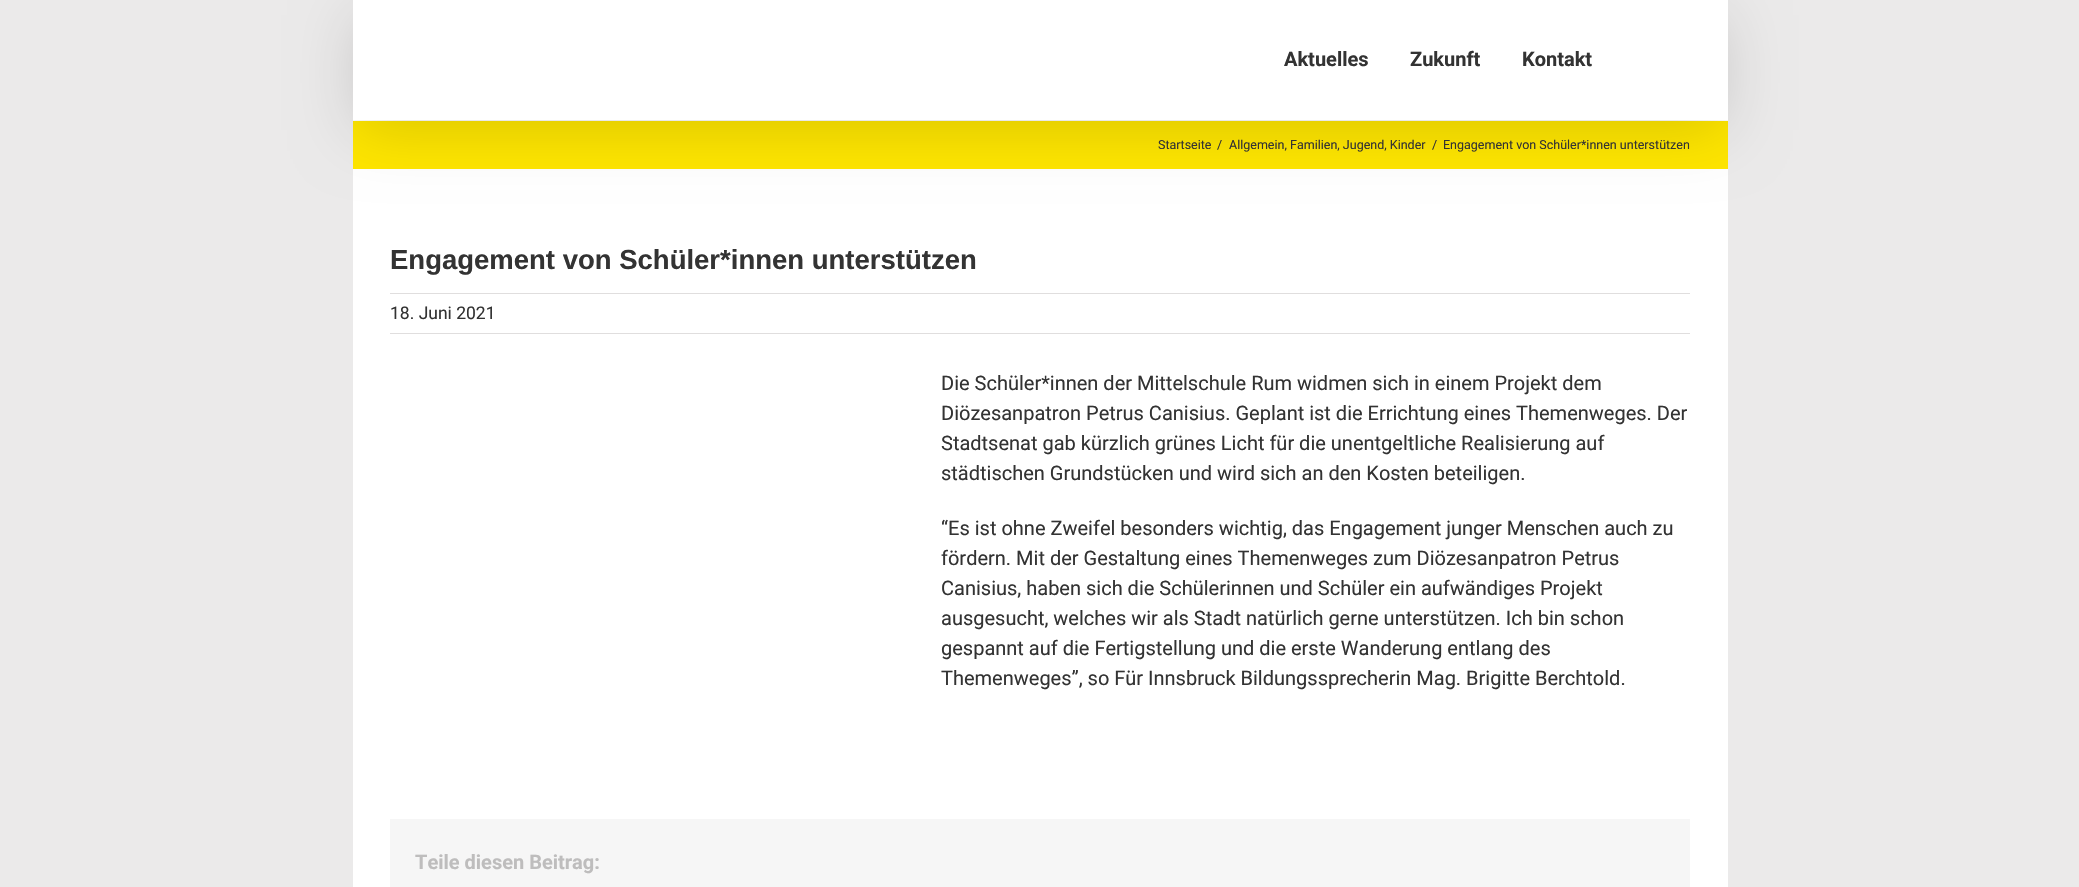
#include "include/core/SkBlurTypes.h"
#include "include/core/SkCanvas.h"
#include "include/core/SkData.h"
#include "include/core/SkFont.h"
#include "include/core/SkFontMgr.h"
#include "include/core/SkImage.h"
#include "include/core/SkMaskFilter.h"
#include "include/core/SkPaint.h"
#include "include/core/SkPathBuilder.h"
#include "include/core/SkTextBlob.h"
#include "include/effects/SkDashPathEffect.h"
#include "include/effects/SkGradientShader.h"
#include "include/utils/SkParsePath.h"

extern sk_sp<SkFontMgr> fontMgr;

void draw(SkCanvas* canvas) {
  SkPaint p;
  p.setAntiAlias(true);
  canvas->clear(SkColorSetRGB(235, 234, 234));
  p.setColor(SkColorSetRGB(255, 230, 0));
  canvas->drawRect(SkRect::MakeLTRB(353, 121, 1728, 169), p);
  p.setColor(SK_ColorWHITE);
  canvas->drawRect(SkRect::MakeLTRB(353, 120, 1728, 121), p);
  canvas->drawRect(SkRect::MakeLTRB(353, 169, 1728, 887), p);
  p.setColor(SkColorSetARGB(36, 0, 0, 0));
  p.setMaskFilter(SkMaskFilter::MakeBlur(kNormal_SkBlurStyle, 31));
  canvas->drawRect(SkRect::MakeLTRB(355, 15, 1725, 130), p);
  p.setMaskFilter(nullptr);
  p.setColor(SK_ColorWHITE);
  canvas->drawRect(SkRect::MakeLTRB(353, 0, 1728, 120), p);
  p.setColor(SkColorSetRGB(224, 222, 222));
  canvas->drawRect(SkRect::MakeLTRB(390, 293, 1690, 294), p);
  canvas->drawRect(SkRect::MakeLTRB(390, 333, 1690, 334), p);
  p.setColor(SkColorSetRGB(246, 246, 246));
  canvas->drawRect(SkRect::MakeLTRB(390, 819, 1690, 887), p);
  SkFont font1(fontMgr->matchFamilyStyle("Roboto", SkFontStyle::Bold()), 20);
  font1.setSubpixel(true);
  p.setColor(SkColorSetRGB(51, 51, 51));
  canvas->drawString("Aktuelles", 1284, 66, font1, p);
  canvas->drawString("Zukunft", 1410, 66, font1, p);
  canvas->drawString("Kontakt", 1522, 66, font1, p);
  SkFont font2(fontMgr->matchFamilyStyle("Roboto", SkFontStyle::Normal()), 12.5f);
  font2.setSubpixel(true);
  canvas->drawString("Startseite", 1158, 149, font2, p);
  canvas->drawString("/", 1217, 149, font2, p);
  canvas->drawString("Allgemein, Familien, Jugend, Kinder", 1229, 149, font2, p);
  canvas->drawString("/", 1432, 149, font2, p);
  canvas->drawString("Engagement von Schüler*innen unterstützen", 1443, 149, font2, p);
  SkFont font3(fontMgr->matchFamilyStyle("Liberation Sans", SkFontStyle::Bold()), 27.5f);
  font3.setSubpixel(true);
  canvas->drawString("Engagement von Schüler*innen unterstützen", 390, 269, font3, p);
  SkFont font4(fontMgr->matchFamilyStyle("Roboto", SkFontStyle::Normal()), 17.5f);
  font4.setSubpixel(true);
  canvas->drawString("18. Juni 2021", 390, 319, font4, p);
  SkFont font5(fontMgr->matchFamilyStyle("Roboto", SkFontStyle::Normal()), 20);
  font5.setSubpixel(true);
  canvas->drawString("Die Schüler*innen der Mittelschule Rum widmen sich in einem Projekt dem", 941, 390, font5, p);
  canvas->drawString("Diözesanpatron Petrus Canisius. Geplant ist die Errichtung eines Themenweges. Der", 941, 420, font5, p);
  canvas->drawString("Stadtsenat gab kürzlich grünes Licht für die unentgeltliche Realisierung auf", 941, 450, font5, p);
  canvas->drawString("städtischen Grundstücken und wird sich an den Kosten beteiligen.", 941, 480, font5, p);
  canvas->drawString("“Es ist ohne Zweifel besonders wichtig, das Engagement junger Menschen auch zu", 941, 535, font5, p);
  canvas->drawString("fördern. Mit der Gestaltung eines Themenweges zum Diözesanpatron Petrus", 941, 565, font5, p);
  canvas->drawString("Canisius, haben sich die Schülerinnen und Schüler ein aufwändiges Projekt", 941, 595, font5, p);
  canvas->drawString("ausgesucht, welches wir als Stadt natürlich gerne unterstützen. Ich bin schon", 941, 625, font5, p);
  canvas->drawString("gespannt auf die Fertigstellung und die erste Wanderung entlang des", 941, 655, font5, p);
  canvas->drawString("Themenweges”, so Für Innsbruck Bildungssprecherin Mag. Brigitte Berchtold.", 941, 685, font5, p);
  p.setColor(SkColorSetRGB(190, 189, 189));
  canvas->drawString("Teile diesen Beitrag:", 415, 869, font1, p);
}
